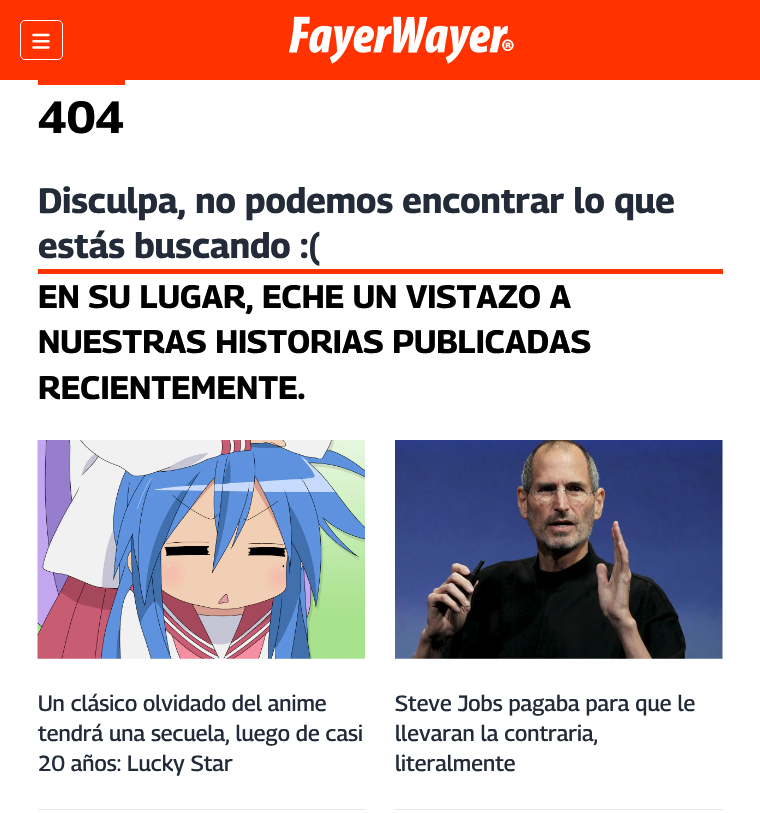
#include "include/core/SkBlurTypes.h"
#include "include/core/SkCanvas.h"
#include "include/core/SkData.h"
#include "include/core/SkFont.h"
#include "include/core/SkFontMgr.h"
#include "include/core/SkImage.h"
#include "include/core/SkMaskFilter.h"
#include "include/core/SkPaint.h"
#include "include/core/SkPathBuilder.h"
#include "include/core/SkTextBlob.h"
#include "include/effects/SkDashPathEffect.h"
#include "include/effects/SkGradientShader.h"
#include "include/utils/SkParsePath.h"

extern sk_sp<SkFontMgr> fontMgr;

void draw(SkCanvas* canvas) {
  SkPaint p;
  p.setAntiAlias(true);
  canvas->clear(SK_ColorWHITE);
  p.setColor(SkColorSetRGB(255, 50, 0));
  canvas->drawRect(SkRect::MakeLTRB(0, 0, 760, 80), p);
  p.setStyle(SkPaint::kStroke_Style);
  p.setStrokeWidth(1);
  p.setColor(SK_ColorWHITE);
  canvas->drawRoundRect(SkRect::MakeLTRB(20.5f, 20.5f, 62.5f, 59.5f), 4.5f, 4.5f, p);
  canvas->drawImageRect(SkImages::DeferredFromEncodedData(SkData::MakeFromFileName("images/1.png")), SkRect::MakeLTRB(32, 33, 50, 49), SkSamplingOptions());
  canvas->drawImageRect(SkImages::DeferredFromEncodedData(SkData::MakeFromFileName("images/2.png")), SkRect::MakeLTRB(289, 16, 514, 64), SkSamplingOptions());
  p.setStyle(SkPaint::kFill_Style);
  p.setColor(SkColorSetRGB(255, 50, 0));
  canvas->drawRect(SkRect::MakeLTRB(38, 80, 125, 85), p);
  canvas->drawRect(SkRect::MakeLTRB(38, 269, 723, 274), p);
  canvas->drawImageRect(SkImages::DeferredFromEncodedData(SkData::MakeFromFileName("images/3.png")), SkRect::MakeLTRB(37, 440, 365, 659), SkSamplingOptions());
  p.setColor(SkColorSetRGB(231, 235, 231));
  canvas->drawRect(SkRect::MakeLTRB(38, 809, 365, 810), p);
  canvas->drawImageRect(SkImages::DeferredFromEncodedData(SkData::MakeFromFileName("images/4.png")), SkRect::MakeLTRB(395, 440, 723, 659), SkSamplingOptions());
  canvas->drawRect(SkRect::MakeLTRB(395, 809, 723, 810), p);
  SkFont font1(fontMgr->matchFamilyStyle("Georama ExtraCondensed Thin", SkFontStyle::Bold()), 45);
  font1.setSubpixel(true);
  p.setColor(SK_ColorBLACK);
  canvas->drawString("404", 38, 133, font1, p);
  SkFont font2(fontMgr->matchFamilyStyle("Georama ExtraCondensed Thin", SkFontStyle::Bold()), 35);
  font2.setSubpixel(true);
  p.setColor(SkColorSetRGB(35, 43, 57));
  canvas->drawString("Disculpa, no podemos encontrar lo que", 38, 213, font2, p);
  canvas->drawString("estás buscando :(", 38, 258, font2, p);
  SkFont font3(fontMgr->matchFamilyStyle("Georama ExtraCondensed Thin", SkFontStyle::Bold()), 32.5f);
  font3.setSubpixel(true);
  p.setColor(SK_ColorBLACK);
  canvas->drawString("EN SU LUGAR, ECHE UN VISTAZO A", 38, 308, font3, p);
  canvas->drawString("NUESTRAS HISTORIAS PUBLICADAS", 38, 353, font3, p);
  canvas->drawString("RECIENTEMENTE.", 38, 399, font3, p);
  SkFont font4(fontMgr->matchFamilyStyle("Georama ExtraCondensed Thin", SkFontStyle(500, SkFontStyle::kNormal_Width, SkFontStyle::kUpright_Slant)), 22);
  font4.setSubpixel(true);
  p.setColor(SkColorSetRGB(35, 43, 57));
  canvas->drawString("Un clásico olvidado del anime", 38, 711, font4, p);
  canvas->drawString("tendrá una secuela, luego de casi", 38, 741, font4, p);
  canvas->drawString("20 años: Lucky Star", 38, 771, font4, p);
  canvas->drawString("Steve Jobs pagaba para que le", 395, 711, font4, p);
  canvas->drawString("llevaran la contraria,", 395, 741, font4, p);
  canvas->drawString("literalmente", 395, 771, font4, p);
}
